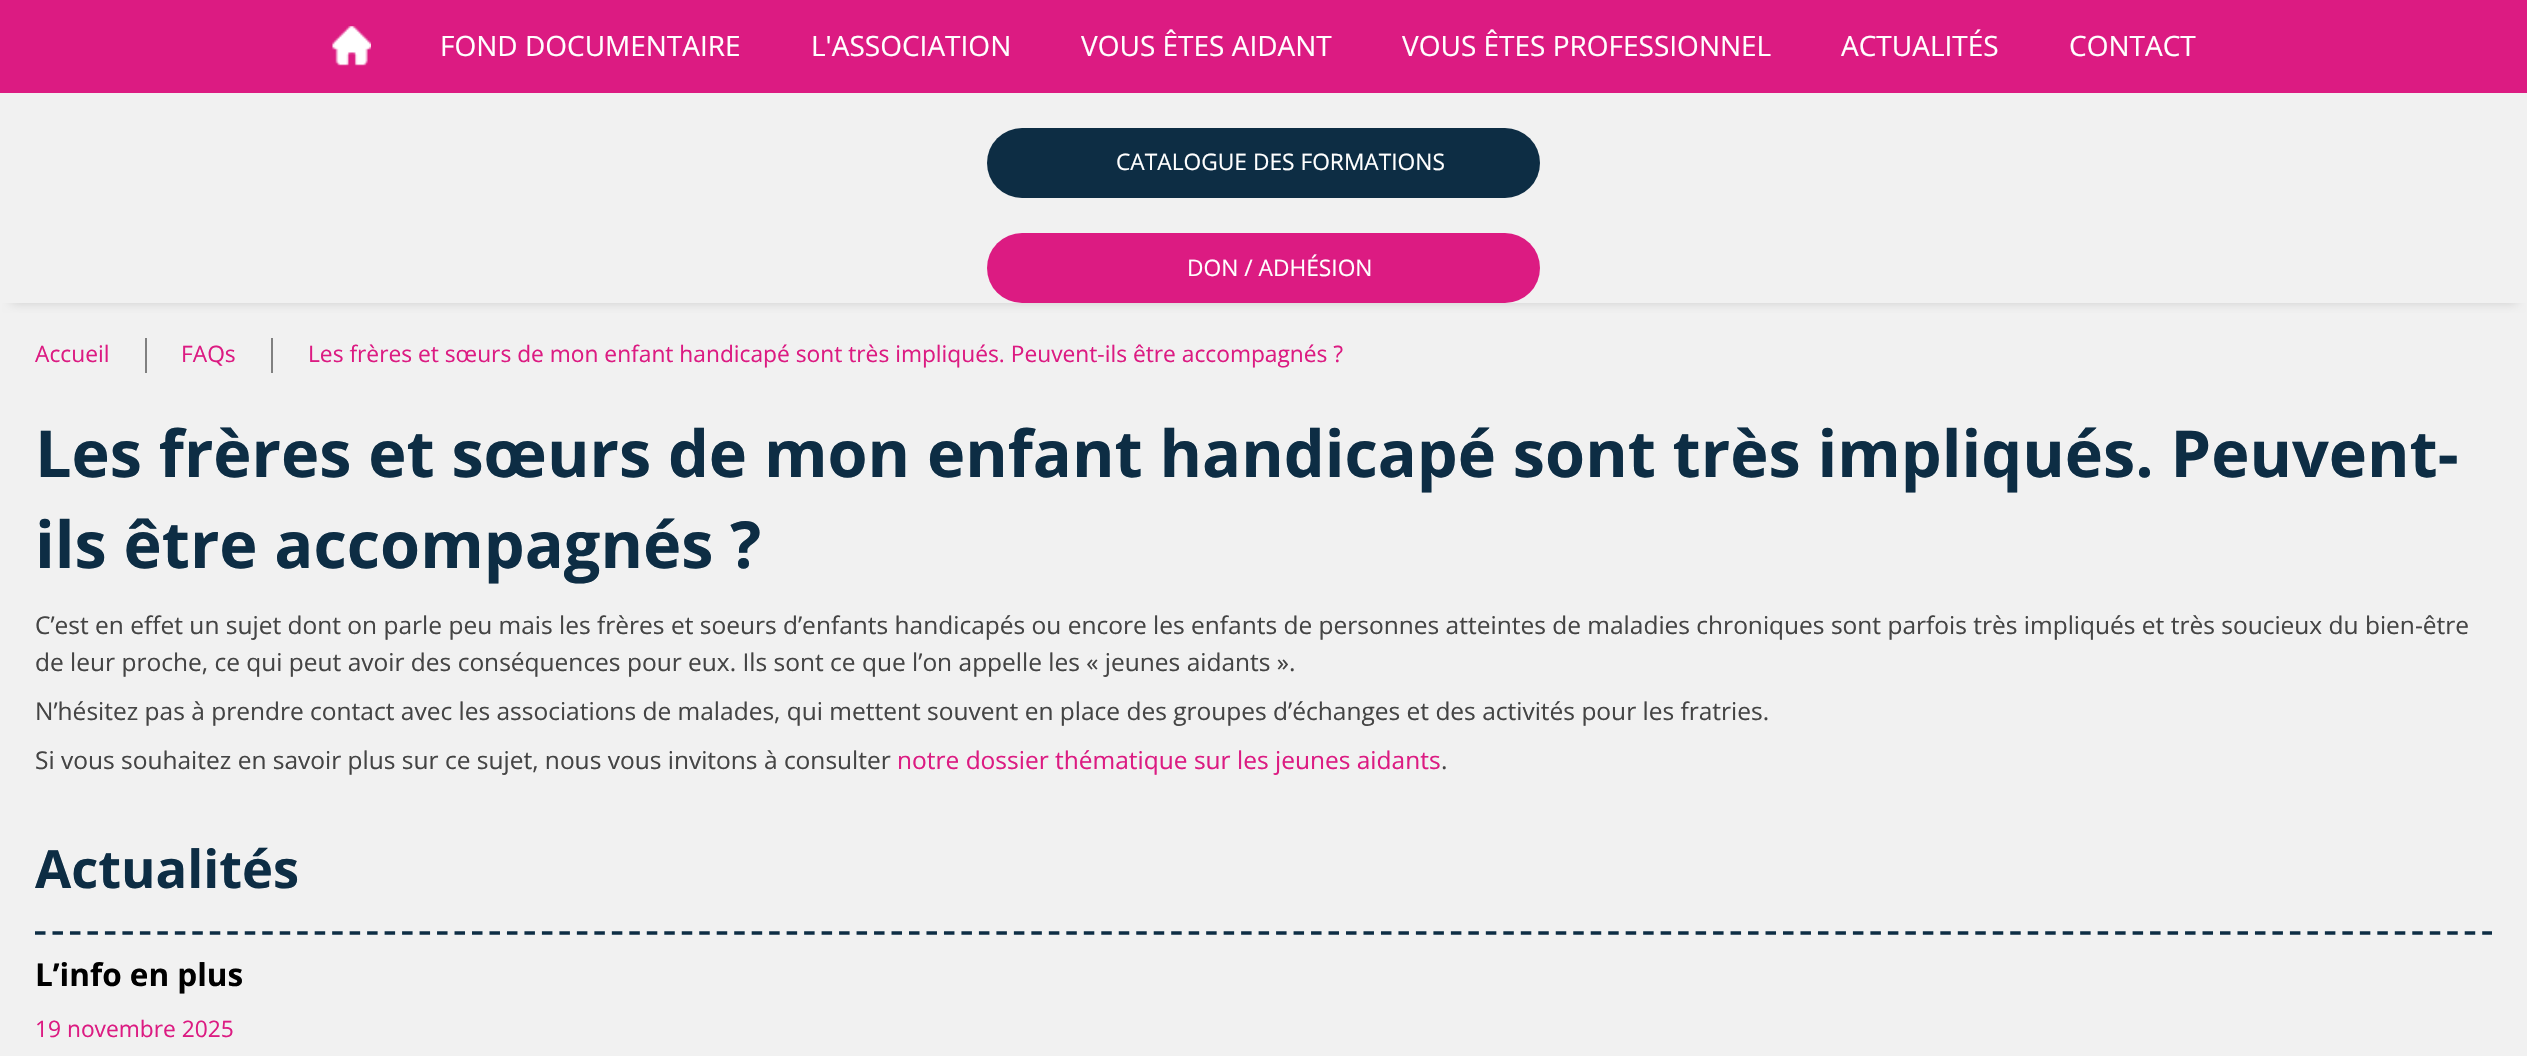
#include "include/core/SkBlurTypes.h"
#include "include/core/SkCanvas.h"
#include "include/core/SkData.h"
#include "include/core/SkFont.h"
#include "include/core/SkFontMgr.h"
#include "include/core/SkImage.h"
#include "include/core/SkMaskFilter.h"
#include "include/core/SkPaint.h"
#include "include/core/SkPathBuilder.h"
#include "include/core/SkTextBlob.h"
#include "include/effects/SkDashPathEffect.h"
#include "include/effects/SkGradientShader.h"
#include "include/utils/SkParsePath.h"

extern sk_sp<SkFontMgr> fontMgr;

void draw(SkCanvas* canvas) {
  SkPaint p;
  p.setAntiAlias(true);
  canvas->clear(SkColorSetRGB(241, 241, 241));
  p.setColor(SkColorSetRGB(220, 27, 130));
  canvas->drawRect(SkRect::MakeLTRB(0, 0, 2527, 93), p);
  canvas->save();
  canvas->clipRect(SkRect::MakeLTRB(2, 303, 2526, 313));
  p.setColor(SkColorSetRGB(206, 206, 206));
  p.setMaskFilter(SkMaskFilter::MakeBlur(kNormal_SkBlurStyle, 5));
  canvas->drawRect(SkRect::MakeLTRB(11, 21, 2517, 303), p);
  p.setMaskFilter(nullptr);
  canvas->restore();
  canvas->drawImageRect(SkImages::DeferredFromEncodedData(SkData::MakeFromFileName("images/1.png")), SkRect::MakeLTRB(332, 26, 371, 66), SkSamplingOptions());
  p.setColor(SkColorSetRGB(13, 45, 68));
  canvas->drawRoundRect(SkRect::MakeLTRB(987, 128, 1540, 198), 35, 35, p);
  p.setColor(SkColorSetRGB(241, 241, 241));
  canvas->drawRect(SkRect::MakeLTRB(12, 302, 2516, 303), p);
  p.setColor(SkColorSetRGB(220, 27, 130));
  canvas->drawRoundRect(SkRect::MakeLTRB(987, 233, 1540, 303), 35, 35, p);
  p.setColor(SkColorSetRGB(128, 128, 128));
  canvas->drawRect(SkRect::MakeLTRB(145, 338, 147, 373), p);
  canvas->drawRect(SkRect::MakeLTRB(271, 338, 273, 373), p);
  p.setStyle(SkPaint::kStroke_Style);
  p.setStrokeWidth(3.5f);
  p.setColor(SkColorSetRGB(13, 45, 68));
  p.setPathEffect(SkDashPathEffect::Make({{10.5f, 6.98f}}, 0));
  canvas->drawPath(SkPathBuilder().moveTo(35, 933).lineTo(2492, 933).detach(), p);
  p.setPathEffect(nullptr);
  SkFont font1(fontMgr->matchFamilyStyle("Open Sans", SkFontStyle::Normal()), 28);
  font1.setSubpixel(true);
  p.setStyle(SkPaint::kFill_Style);
  p.setColor(SK_ColorWHITE);
  canvas->drawString("FOND DOCUMENTAIRE", 440, 56, font1, p);
  canvas->drawString("L'ASSOCIATION", 811, 56, font1, p);
  canvas->drawString("VOUS ÊTES AIDANT", 1081, 56, font1, p);
  canvas->drawString("VOUS ÊTES PROFESSIONNEL", 1402, 56, font1, p);
  canvas->drawString("ACTUALITÉS", 1841, 56, font1, p);
  canvas->drawString("CONTACT", 2069, 56, font1, p);
  SkFont font2(fontMgr->matchFamilyStyle("Open Sans", SkFontStyle::Normal()), 22.75f);
  font2.setSubpixel(true);
  canvas->drawString("CATALOGUE DES FORMATIONS", 1116, 170, font2, p);
  canvas->drawString("DON / ADHÉSION", 1187, 276, font2, p);
  p.setColor(SkColorSetRGB(220, 27, 130));
  canvas->drawString("Accueil", 35, 362, font2, p);
  canvas->drawString("FAQs", 181, 362, font2, p);
  canvas->drawString("Les frères et sœurs de mon enfant handicapé sont très impliqués. Peuvent-ils être accompagnés ?", 308, 362, font2, p);
  SkFont font3(fontMgr->matchFamilyStyle("Open Sans", SkFontStyle::Bold()), 64.75f);
  font3.setSubpixel(true);
  p.setColor(SkColorSetRGB(13, 45, 68));
  canvas->drawString("Les frères et sœurs de mon enfant handicapé sont très impliqués. Peuvent-", 35, 477, font3, p);
  canvas->drawString("ils être accompagnés ?", 35, 568, font3, p);
  SkFont font4(fontMgr->matchFamilyStyle("Open Sans", SkFontStyle::Normal()), 24.5f);
  font4.setSubpixel(true);
  p.setColor(SkColorSetRGB(68, 68, 68));
  canvas->drawString("C’est en effet un sujet dont on parle peu mais les frères et soeurs d’enfants handicapés ou encore les enfants de personnes atteintes de maladies chroniques sont parfois très impliqués et très soucieux du bien-être", 35, 634, font4, p);
  canvas->drawString("de leur proche, ce qui peut avoir des conséquences pour eux. Ils sont ce que l’on appelle les « jeunes aidants ».", 35, 671, font4, p);
  canvas->drawString("N’hésitez pas à prendre contact avec les associations de malades, qui mettent souvent en place des groupes d’échanges et des activités pour les fratries.", 35, 720, font4, p);
  canvas->drawString("Si vous souhaitez en savoir plus sur ce sujet, nous vous invitons à consulter", 35, 769, font4, p);
  p.setColor(SkColorSetRGB(220, 27, 130));
  canvas->drawString("notre dossier thématique sur les jeunes aidants", 897, 769, font4, p);
  p.setColor(SkColorSetRGB(68, 68, 68));
  canvas->drawString(".", 1441, 769, font4, p);
  SkFont font5(fontMgr->matchFamilyStyle("Open Sans", SkFontStyle::Bold()), 52.5f);
  font5.setSubpixel(true);
  p.setColor(SkColorSetRGB(13, 45, 68));
  canvas->drawString("Actualités", 35, 888, font5, p);
  SkFont font6(fontMgr->matchFamilyStyle("Open Sans", SkFontStyle::Bold()), 31.5f);
  font6.setSubpixel(true);
  p.setColor(SK_ColorBLACK);
  canvas->drawString("L’info en plus", 35, 986, font6, p);
  p.setColor(SkColorSetRGB(220, 27, 130));
  canvas->drawString("19 novembre 2025", 35, 1037, font2, p);
}
